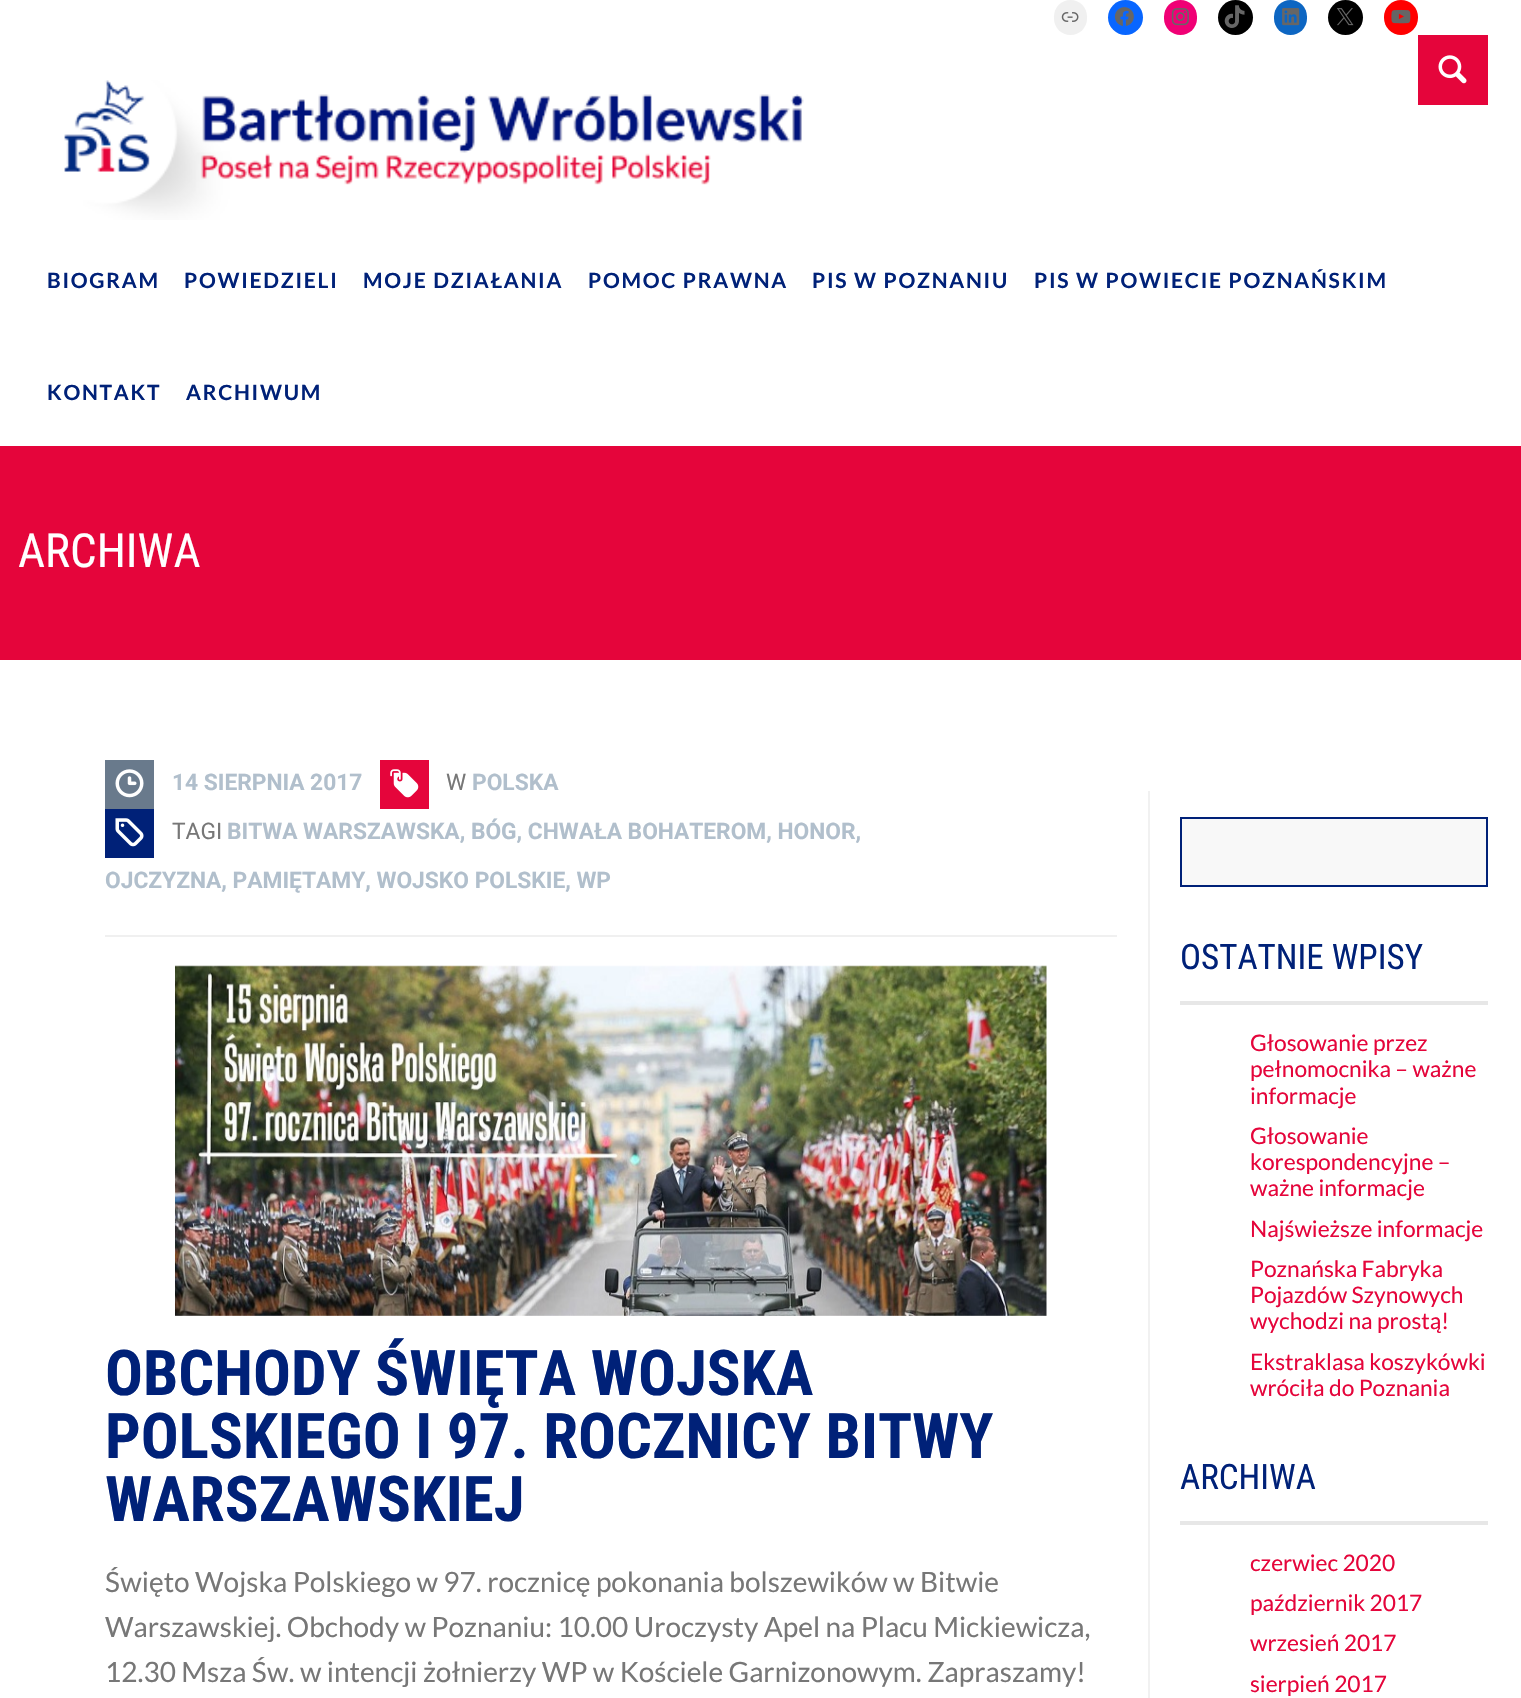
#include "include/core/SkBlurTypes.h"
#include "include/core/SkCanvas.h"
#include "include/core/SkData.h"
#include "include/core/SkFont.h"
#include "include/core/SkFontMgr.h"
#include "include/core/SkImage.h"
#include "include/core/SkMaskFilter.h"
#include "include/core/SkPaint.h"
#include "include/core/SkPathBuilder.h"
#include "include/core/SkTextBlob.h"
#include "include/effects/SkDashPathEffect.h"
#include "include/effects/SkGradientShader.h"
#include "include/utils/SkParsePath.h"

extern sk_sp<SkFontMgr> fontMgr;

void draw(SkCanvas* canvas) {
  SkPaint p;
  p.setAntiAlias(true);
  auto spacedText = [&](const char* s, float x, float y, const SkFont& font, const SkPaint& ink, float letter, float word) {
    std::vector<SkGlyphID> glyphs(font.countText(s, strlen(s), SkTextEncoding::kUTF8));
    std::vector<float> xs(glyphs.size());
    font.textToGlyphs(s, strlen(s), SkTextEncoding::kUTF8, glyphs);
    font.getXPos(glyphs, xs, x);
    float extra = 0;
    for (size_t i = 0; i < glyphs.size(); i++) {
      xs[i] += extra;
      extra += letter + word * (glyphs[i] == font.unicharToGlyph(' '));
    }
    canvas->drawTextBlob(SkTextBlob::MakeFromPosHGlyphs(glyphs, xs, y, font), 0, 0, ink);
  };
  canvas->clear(SK_ColorWHITE);
  p.setColor(SkColorSetRGB(240, 240, 240));
  canvas->drawRoundRect(SkRect::MakeLTRB(1054, 0, 1087, 35), 16.5f, 16.5f, p);
  canvas->drawImageRect(SkImages::DeferredFromEncodedData(SkData::MakeFromFileName("images/1.png")), SkRect::MakeLTRB(1061, 12, 1079, 22), SkSamplingOptions());
  p.setColor(SkColorSetRGB(8, 102, 255));
  canvas->drawCircle(1125.5f, 17.5f, 17.5f, p);
  canvas->drawImageRect(SkImages::DeferredFromEncodedData(SkData::MakeFromFileName("images/2.png")), SkRect::MakeLTRB(1114, 7, 1134, 26), SkSamplingOptions());
  p.setColor(SkColorSetRGB(240, 0, 117));
  canvas->drawRoundRect(SkRect::MakeLTRB(1164, 0, 1197, 35), 16.5f, 16.5f, p);
  canvas->drawImageRect(SkImages::DeferredFromEncodedData(SkData::MakeFromFileName("images/3.png")), SkRect::MakeLTRB(1171, 8, 1189, 26), SkSamplingOptions());
  p.setColor(SK_ColorBLACK);
  canvas->drawCircle(1235.5f, 17.5f, 17.5f, p);
  canvas->drawImageRect(SkImages::DeferredFromEncodedData(SkData::MakeFromFileName("images/4.png")), SkRect::MakeLTRB(1224, 5, 1245, 28), SkSamplingOptions());
  p.setColor(SkColorSetRGB(13, 102, 194));
  canvas->drawRoundRect(SkRect::MakeLTRB(1274, 0, 1307, 35), 16.5f, 16.5f, p);
  canvas->drawImageRect(SkImages::DeferredFromEncodedData(SkData::MakeFromFileName("images/5.png")), SkRect::MakeLTRB(1282, 8, 1300, 26), SkSamplingOptions());
  p.setColor(SK_ColorBLACK);
  canvas->drawCircle(1345.5f, 17.5f, 17.5f, p);
  canvas->drawImageRect(SkImages::DeferredFromEncodedData(SkData::MakeFromFileName("images/6.png")), SkRect::MakeLTRB(1337, 8, 1354, 26), SkSamplingOptions());
  p.setColor(SkColorSetRGB(255, 0, 0));
  canvas->drawRoundRect(SkRect::MakeLTRB(1384, 0, 1418, 35), 17, 17, p);
  canvas->drawImageRect(SkImages::DeferredFromEncodedData(SkData::MakeFromFileName("images/7.png")), SkRect::MakeLTRB(1391, 9, 1411, 24), SkSamplingOptions());
  p.setColor(SkColorSetRGB(229, 5, 59));
  canvas->drawRect(SkRect::MakeLTRB(1418, 35, 1488, 105), p);
  canvas->drawImageRect(SkImages::DeferredFromEncodedData(SkData::MakeFromFileName("images/8.png")), SkRect::MakeLTRB(1438, 55, 1467, 84), SkSamplingOptions());
  canvas->drawImageRect(SkImages::DeferredFromEncodedData(SkData::MakeFromFileName("images/9.png")), SkRect::MakeLTRB(64, 80, 804, 220), SkSamplingOptions());
  canvas->drawRect(SkRect::MakeLTRB(0, 446, 1521, 660), p);
  p.setColor(SkColorSetRGB(240, 240, 240));
  canvas->drawRect(SkRect::MakeLTRB(105, 935, 1117, 937), p);
  p.setColor(SkColorSetRGB(105, 122, 140));
  canvas->drawRect(SkRect::MakeLTRB(105, 760, 154, 809), p);
  canvas->drawImageRect(SkImages::DeferredFromEncodedData(SkData::MakeFromFileName("images/10.png")), SkRect::MakeLTRB(115, 769, 144, 798), SkSamplingOptions());
  p.setColor(SkColorSetRGB(229, 5, 59));
  canvas->drawRect(SkRect::MakeLTRB(380, 760, 429, 809), p);
  canvas->drawImageRect(SkImages::DeferredFromEncodedData(SkData::MakeFromFileName("images/11.png")), SkRect::MakeLTRB(390, 769, 419, 798), SkSamplingOptions());
  p.setColor(SkColorSetRGB(0, 33, 120));
  canvas->drawRect(SkRect::MakeLTRB(105, 809, 154, 858), p);
  canvas->drawImageRect(SkImages::DeferredFromEncodedData(SkData::MakeFromFileName("images/12.png")), SkRect::MakeLTRB(115, 818, 144, 847), SkSamplingOptions());
  canvas->drawImageRect(SkImages::DeferredFromEncodedData(SkData::MakeFromFileName("images/13.png")), SkRect::MakeLTRB(175, 965, 1047, 1316), SkSamplingOptions());
  p.setColor(SkColorSetRGB(241, 241, 241));
  canvas->drawRect(SkRect::MakeLTRB(1148, 791, 1150, 1698), p);
  p.setColor(SkColorSetRGB(248, 248, 248));
  canvas->drawRect(SkRect::MakeLTRB(1181, 818, 1487, 886), p);
  p.setStyle(SkPaint::kStroke_Style);
  p.setStrokeWidth(2);
  p.setColor(SkColorSetRGB(0, 33, 120));
  canvas->drawRect(SkRect::MakeLTRB(1181, 818, 1487, 886), p);
  p.setStyle(SkPaint::kFill_Style);
  p.setColor(SkColorSetRGB(231, 231, 231));
  canvas->drawRect(SkRect::MakeLTRB(1180, 1001, 1488, 1005), p);
  canvas->drawRect(SkRect::MakeLTRB(1180, 1521, 1488, 1525), p);
  SkFont font1(fontMgr->matchFamilyStyle("Lato", SkFontStyle::Bold()), 21);
  font1.setSubpixel(true);
  p.setColor(SkColorSetRGB(0, 33, 120));
  spacedText("BIOGRAM", 47, 288, font1, p, 1.75f, 0);
  spacedText("POWIEDZIELI", 184, 288, font1, p, 1.75f, 0);
  spacedText("MOJE DZIAŁANIA", 363, 288, font1, p, 1.75f, 0);
  spacedText("POMOC PRAWNA", 588, 288, font1, p, 1.75f, 0);
  spacedText("PIS W POZNANIU", 812, 288, font1, p, 1.75f, 0);
  spacedText("PIS W POWIECIE POZNAŃSKIM", 1034, 288, font1, p, 1.75f, 0);
  spacedText("KONTAKT", 47, 400, font1, p, 1.75f, 0);
  spacedText("ARCHIWUM", 186, 400, font1, p, 1.75f, 0);
  SkFont font2(fontMgr->matchFamilyStyle("Roboto Condensed", SkFontStyle::Normal()), 47);
  font2.setSubpixel(true);
  p.setColor(SK_ColorWHITE);
  canvas->drawString("ARCHIWA", 18, 567, font2, p);
  SkFont font3(fontMgr->matchFamilyStyle("Roboto", SkFontStyle::Bold()), 22.75f);
  font3.setSubpixel(true);
  p.setColor(SkColorSetRGB(177, 191, 204));
  canvas->drawString("14 SIERPNIA 2017", 172, 790, font3, p);
  SkFont font4(fontMgr->matchFamilyStyle("Roboto", SkFontStyle::Normal()), 22.75f);
  font4.setSubpixel(true);
  p.setColor(SkColorSetRGB(119, 119, 119));
  canvas->drawString("W", 446, 790, font4, p);
  p.setColor(SkColorSetRGB(177, 191, 204));
  canvas->drawString("POLSKA", 472, 790, font3, p);
  p.setColor(SkColorSetRGB(119, 119, 119));
  canvas->drawString("TAGI", 172, 839, font4, p);
  p.setColor(SkColorSetRGB(177, 191, 204));
  canvas->drawString("BITWA WARSZAWSKA, BÓG, CHWAŁA BOHATEROM, HONOR,", 227, 839, font3, p);
  canvas->drawString("OJCZYZNA, PAMIĘTAMY, WOJSKO POLSKIE, WP", 105, 888, font3, p);
  SkFont font5(fontMgr->matchFamilyStyle("Roboto Condensed", SkFontStyle::Bold()), 63);
  font5.setSubpixel(true);
  p.setColor(SkColorSetRGB(0, 33, 120));
  canvas->drawString("OBCHODY ŚWIĘTA WOJSKA", 105, 1395, font5, p);
  canvas->drawString("POLSKIEGO I 97. ROCZNICY BITWY", 105, 1458, font5, p);
  canvas->drawString("WARSZAWSKIEJ", 105, 1521, font5, p);
  SkFont font6(fontMgr->matchFamilyStyle("Lato", SkFontStyle::Normal()), 28);
  font6.setSubpixel(true);
  p.setColor(SkColorSetRGB(119, 119, 119));
  canvas->drawString("Święto Wojska Polskiego w 97. rocznicę pokonania bolszewików w Bitwie", 105, 1592, font6, p);
  canvas->drawString("Warszawskiej. Obchody w Poznaniu: 10.00 Uroczysty Apel na Placu Mickiewicza,", 105, 1637, font6, p);
  canvas->drawString("12.30 Msza Św. w intencji żołnierzy WP w Kościele Garnizonowym. Zapraszamy!", 105, 1682, font6, p);
  SkFont font7(fontMgr->matchFamilyStyle("Roboto Condensed", SkFontStyle::Normal()), 35);
  font7.setSubpixel(true);
  p.setColor(SkColorSetRGB(0, 33, 120));
  canvas->drawString("OSTATNIE WPISY", 1180, 969, font7, p);
  SkFont font8(fontMgr->matchFamilyStyle("Lato", SkFontStyle::Normal()), 22.75f);
  font8.setSubpixel(true);
  p.setColor(SkColorSetRGB(229, 5, 59));
  canvas->drawString("Głosowanie przez", 1250, 1051, font8, p);
  canvas->drawString("pełnomocnika – ważne", 1250, 1077, font8, p);
  canvas->drawString("informacje", 1250, 1104, font8, p);
  canvas->drawString("Głosowanie", 1250, 1144, font8, p);
  canvas->drawString("korespondencyjne –", 1250, 1170, font8, p);
  canvas->drawString("ważne informacje", 1250, 1196, font8, p);
  canvas->drawString("Najświeższe informacje", 1250, 1237, font8, p);
  canvas->drawString("Poznańska Fabryka", 1250, 1277, font8, p);
  canvas->drawString("Pojazdów Szynowych", 1250, 1303, font8, p);
  canvas->drawString("wychodzi na prostą!", 1250, 1329, font8, p);
  canvas->drawString("Ekstraklasa koszykówki", 1250, 1370, font8, p);
  canvas->drawString("wróciła do Poznania", 1250, 1396, font8, p);
  p.setColor(SkColorSetRGB(0, 33, 120));
  canvas->drawString("ARCHIWA", 1180, 1489, font7, p);
  p.setColor(SkColorSetRGB(229, 5, 59));
  canvas->drawString("czerwiec 2020", 1250, 1571, font8, p);
  canvas->drawString("październik 2017", 1250, 1611, font8, p);
  canvas->drawString("wrzesień 2017", 1250, 1651, font8, p);
  canvas->drawString("sierpień 2017", 1250, 1692, font8, p);
}
